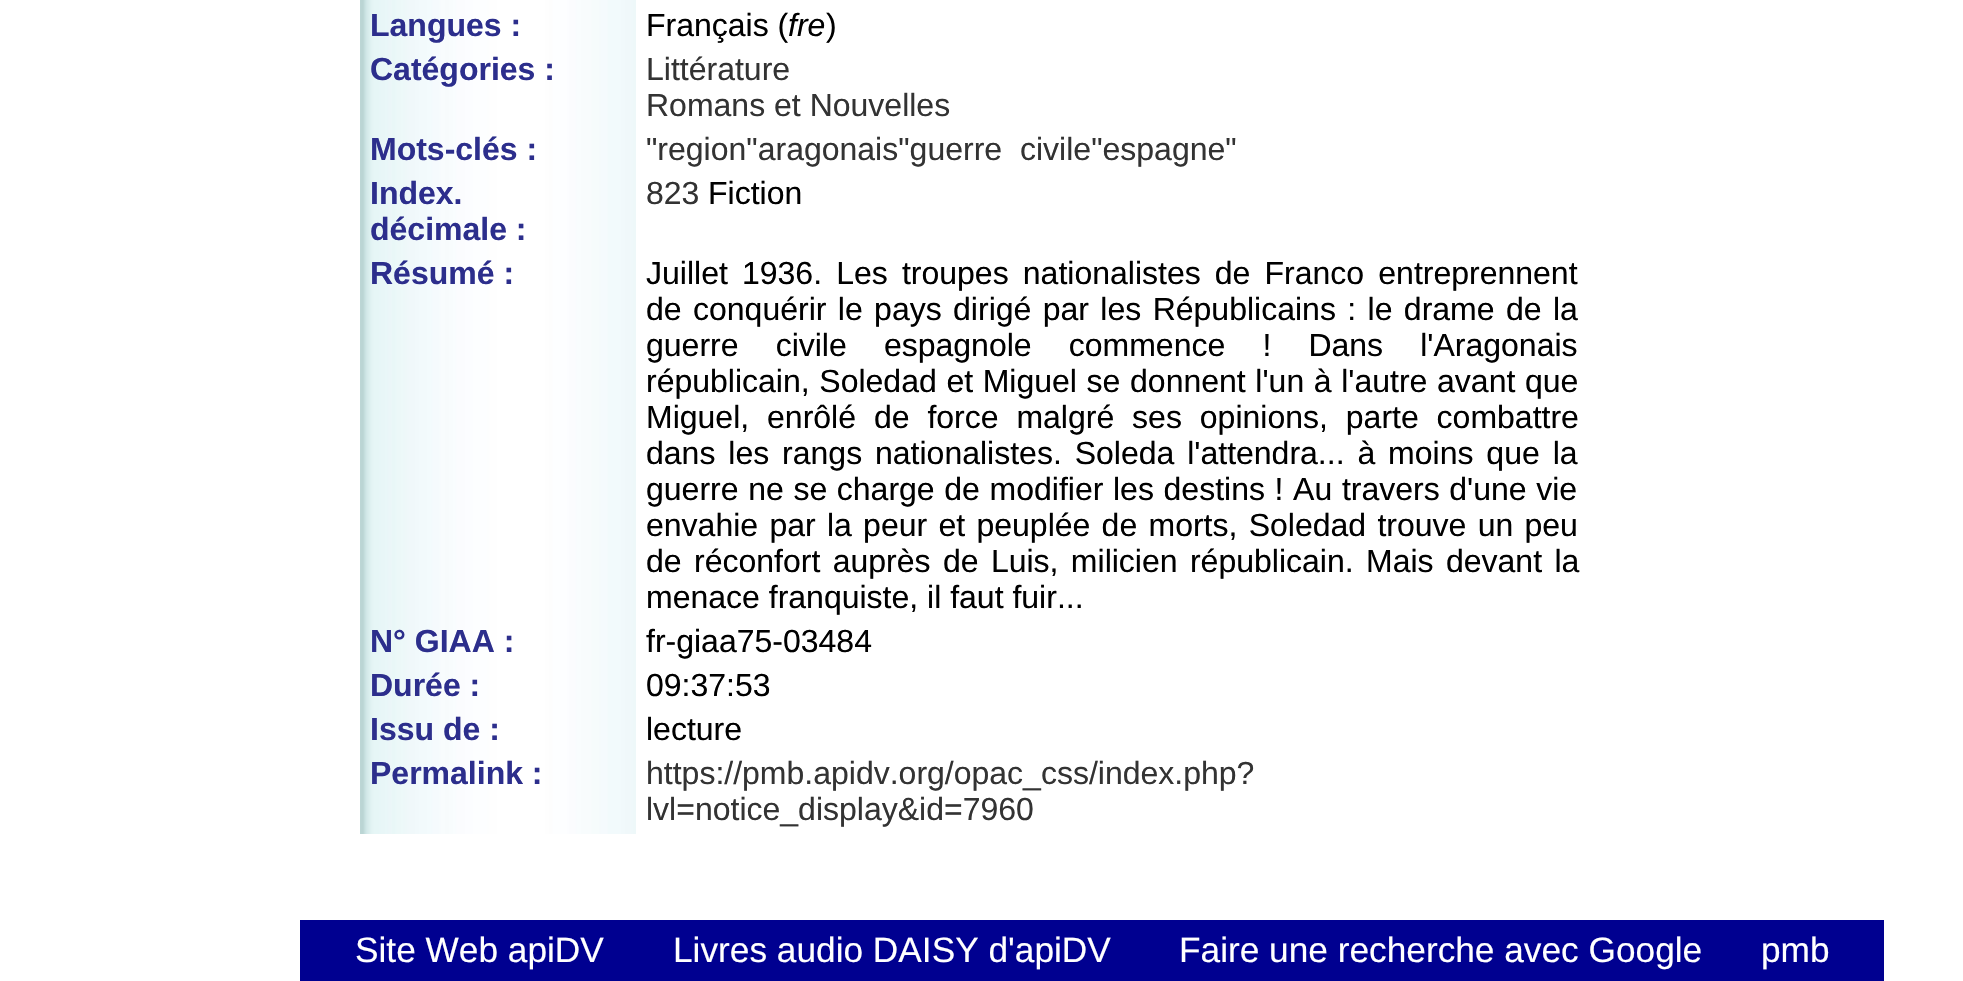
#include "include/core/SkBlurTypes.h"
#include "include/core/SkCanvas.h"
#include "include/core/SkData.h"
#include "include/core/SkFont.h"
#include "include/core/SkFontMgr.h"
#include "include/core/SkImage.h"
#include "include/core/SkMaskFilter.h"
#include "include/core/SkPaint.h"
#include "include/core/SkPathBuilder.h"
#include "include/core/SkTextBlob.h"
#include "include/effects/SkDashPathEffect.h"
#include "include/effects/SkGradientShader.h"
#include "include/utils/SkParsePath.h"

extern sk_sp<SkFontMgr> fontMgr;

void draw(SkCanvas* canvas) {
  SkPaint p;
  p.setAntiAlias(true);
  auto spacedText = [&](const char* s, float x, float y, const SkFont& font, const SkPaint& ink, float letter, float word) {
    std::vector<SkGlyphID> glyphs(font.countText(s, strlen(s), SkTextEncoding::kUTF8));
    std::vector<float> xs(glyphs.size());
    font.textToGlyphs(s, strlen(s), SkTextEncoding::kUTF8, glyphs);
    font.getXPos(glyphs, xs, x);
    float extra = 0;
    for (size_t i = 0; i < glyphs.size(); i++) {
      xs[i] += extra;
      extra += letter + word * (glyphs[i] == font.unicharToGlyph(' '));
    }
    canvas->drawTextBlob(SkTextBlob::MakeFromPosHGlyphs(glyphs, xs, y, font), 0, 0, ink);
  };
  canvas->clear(SK_ColorWHITE);
  canvas->drawImageRect(SkImages::DeferredFromEncodedData(SkData::MakeFromFileName("images/1.png")), SkRect::MakeLTRB(360, 0, 636, 6), SkSamplingOptions());
  canvas->drawImageRect(SkImages::DeferredFromEncodedData(SkData::MakeFromFileName("images/2.png")), SkRect::MakeLTRB(360, 6, 636, 50), SkSamplingOptions());
  canvas->drawImageRect(SkImages::DeferredFromEncodedData(SkData::MakeFromFileName("images/3.png")), SkRect::MakeLTRB(360, 50, 636, 130), SkSamplingOptions());
  canvas->drawImageRect(SkImages::DeferredFromEncodedData(SkData::MakeFromFileName("images/2.png")), SkRect::MakeLTRB(360, 130, 636, 174), SkSamplingOptions());
  canvas->drawImageRect(SkImages::DeferredFromEncodedData(SkData::MakeFromFileName("images/3.png")), SkRect::MakeLTRB(360, 174, 636, 254), SkSamplingOptions());
  canvas->drawImageRect(SkImages::DeferredFromEncodedData(SkData::MakeFromFileName("images/4.png")), SkRect::MakeLTRB(360, 254, 636, 622), SkSamplingOptions());
  canvas->drawImageRect(SkImages::DeferredFromEncodedData(SkData::MakeFromFileName("images/2.png")), SkRect::MakeLTRB(360, 622, 636, 666), SkSamplingOptions());
  canvas->drawImageRect(SkImages::DeferredFromEncodedData(SkData::MakeFromFileName("images/2.png")), SkRect::MakeLTRB(360, 666, 636, 710), SkSamplingOptions());
  canvas->drawImageRect(SkImages::DeferredFromEncodedData(SkData::MakeFromFileName("images/2.png")), SkRect::MakeLTRB(360, 710, 636, 754), SkSamplingOptions());
  canvas->drawImageRect(SkImages::DeferredFromEncodedData(SkData::MakeFromFileName("images/3.png")), SkRect::MakeLTRB(360, 754, 636, 834), SkSamplingOptions());
  p.setColor(SkColorSetRGB(0, 0, 144));
  canvas->drawRect(SkRect::MakeLTRB(300, 920, 1884, 981), p);
  SkFont font1(fontMgr->matchFamilyStyle("Liberation Sans", SkFontStyle::Bold()), 32);
  font1.setSubpixel(true);
  p.setColor(SkColorSetRGB(44, 46, 140));
  canvas->drawString("Langues :", 370, 36, font1, p);
  SkFont font2(fontMgr->matchFamilyStyle("Liberation Sans", SkFontStyle::Normal()), 32);
  font2.setSubpixel(true);
  p.setColor(SK_ColorBLACK);
  canvas->drawString("Français (", 646, 36, font2, p);
  SkFont font3(fontMgr->matchFamilyStyle("Liberation Sans", SkFontStyle::Italic()), 32);
  font3.setSubpixel(true);
  canvas->drawString("fre", 788, 36, font3, p);
  canvas->drawString(")", 826, 36, font2, p);
  p.setColor(SkColorSetRGB(44, 46, 140));
  canvas->drawString("Catégories :", 370, 80, font1, p);
  p.setColor(SkColorSetRGB(51, 51, 51));
  canvas->drawString("Littérature", 646, 80, font2, p);
  canvas->drawString("Romans et Nouvelles", 646, 116, font2, p);
  p.setColor(SkColorSetRGB(44, 46, 140));
  canvas->drawString("Mots-clés :", 370, 160, font1, p);
  p.setColor(SkColorSetRGB(51, 51, 51));
  canvas->drawString("\"region\"aragonais\"guerre", 646, 160, font2, p);
  canvas->drawString("civile\"espagne\"", 1020, 160, font2, p);
  p.setColor(SkColorSetRGB(44, 46, 140));
  canvas->drawString("Index.", 370, 204, font1, p);
  canvas->drawString("décimale :", 370, 240, font1, p);
  p.setColor(SkColorSetRGB(51, 51, 51));
  canvas->drawString("823", 646, 204, font2, p);
  p.setColor(SK_ColorBLACK);
  canvas->drawString("Fiction", 708, 204, font2, p);
  p.setColor(SkColorSetRGB(44, 46, 140));
  canvas->drawString("Résumé :", 370, 284, font1, p);
  p.setColor(SK_ColorBLACK);
  spacedText("Juillet 1936. Les troupes nationalistes de Franco entreprennent", 646, 284, font2, p, 0, 5.25f);
  spacedText("de conquérir le pays dirigé par les Républicains : le drame de la", 646, 320, font2, p, 0, 2.5f);
  spacedText("guerre civile espagnole commence ! Dans l'Aragonais", 646, 356, font2, p, 0, 28.25f);
  spacedText("républicain, Soledad et Miguel se donnent l'un à l'autre avant que", 646, 392, font2, p, 0, 0.75f);
  spacedText("Miguel, enrôlé de force malgré ses opinions, parte combattre", 646, 428, font2, p, 0, 9);
  spacedText("dans les rangs nationalistes. Soleda l'attendra... à moins que la", 646, 464, font2, p, 0, 4);
  spacedText("guerre ne se charge de modifier les destins ! Au travers d'une vie", 646, 500, font2, p, 0, 0.75f);
  spacedText("envahie par la peur et peuplée de morts, Soledad trouve un peu", 646, 536, font2, p, 0, 2.4f);
  spacedText("de réconfort auprès de Luis, milicien républicain. Mais devant la", 646, 572, font2, p, 0, 3.5f);
  canvas->drawString("menace franquiste, il faut fuir...", 646, 608, font2, p);
  p.setColor(SkColorSetRGB(44, 46, 140));
  canvas->drawString("N° GIAA :", 370, 652, font1, p);
  p.setColor(SK_ColorBLACK);
  canvas->drawString("fr-giaa75-03484", 646, 652, font2, p);
  p.setColor(SkColorSetRGB(44, 46, 140));
  canvas->drawString("Durée :", 370, 696, font1, p);
  p.setColor(SK_ColorBLACK);
  canvas->drawString("09:37:53", 646, 696, font2, p);
  p.setColor(SkColorSetRGB(44, 46, 140));
  canvas->drawString("Issu de :", 370, 740, font1, p);
  p.setColor(SK_ColorBLACK);
  canvas->drawString("lecture", 646, 740, font2, p);
  p.setColor(SkColorSetRGB(44, 46, 140));
  canvas->drawString("Permalink :", 370, 784, font1, p);
  p.setColor(SkColorSetRGB(51, 51, 51));
  canvas->drawString("https://pmb.apidv.org/opac_css/index.php?", 646, 784, font2, p);
  canvas->drawString("lvl=notice_display&id=7960", 646, 820, font2, p);
  SkFont font4(fontMgr->matchFamilyStyle("Liberation Sans", SkFontStyle::Normal()), 35.25f);
  font4.setSubpixel(true);
  p.setColor(SK_ColorWHITE);
  canvas->drawString("Site Web apiDV", 355, 962, font4, p);
  canvas->drawString("Livres audio DAISY d'apiDV", 673, 962, font4, p);
  canvas->drawString("Faire une recherche avec Google", 1179, 962, font4, p);
  canvas->drawString("pmb", 1761, 962, font4, p);
}
